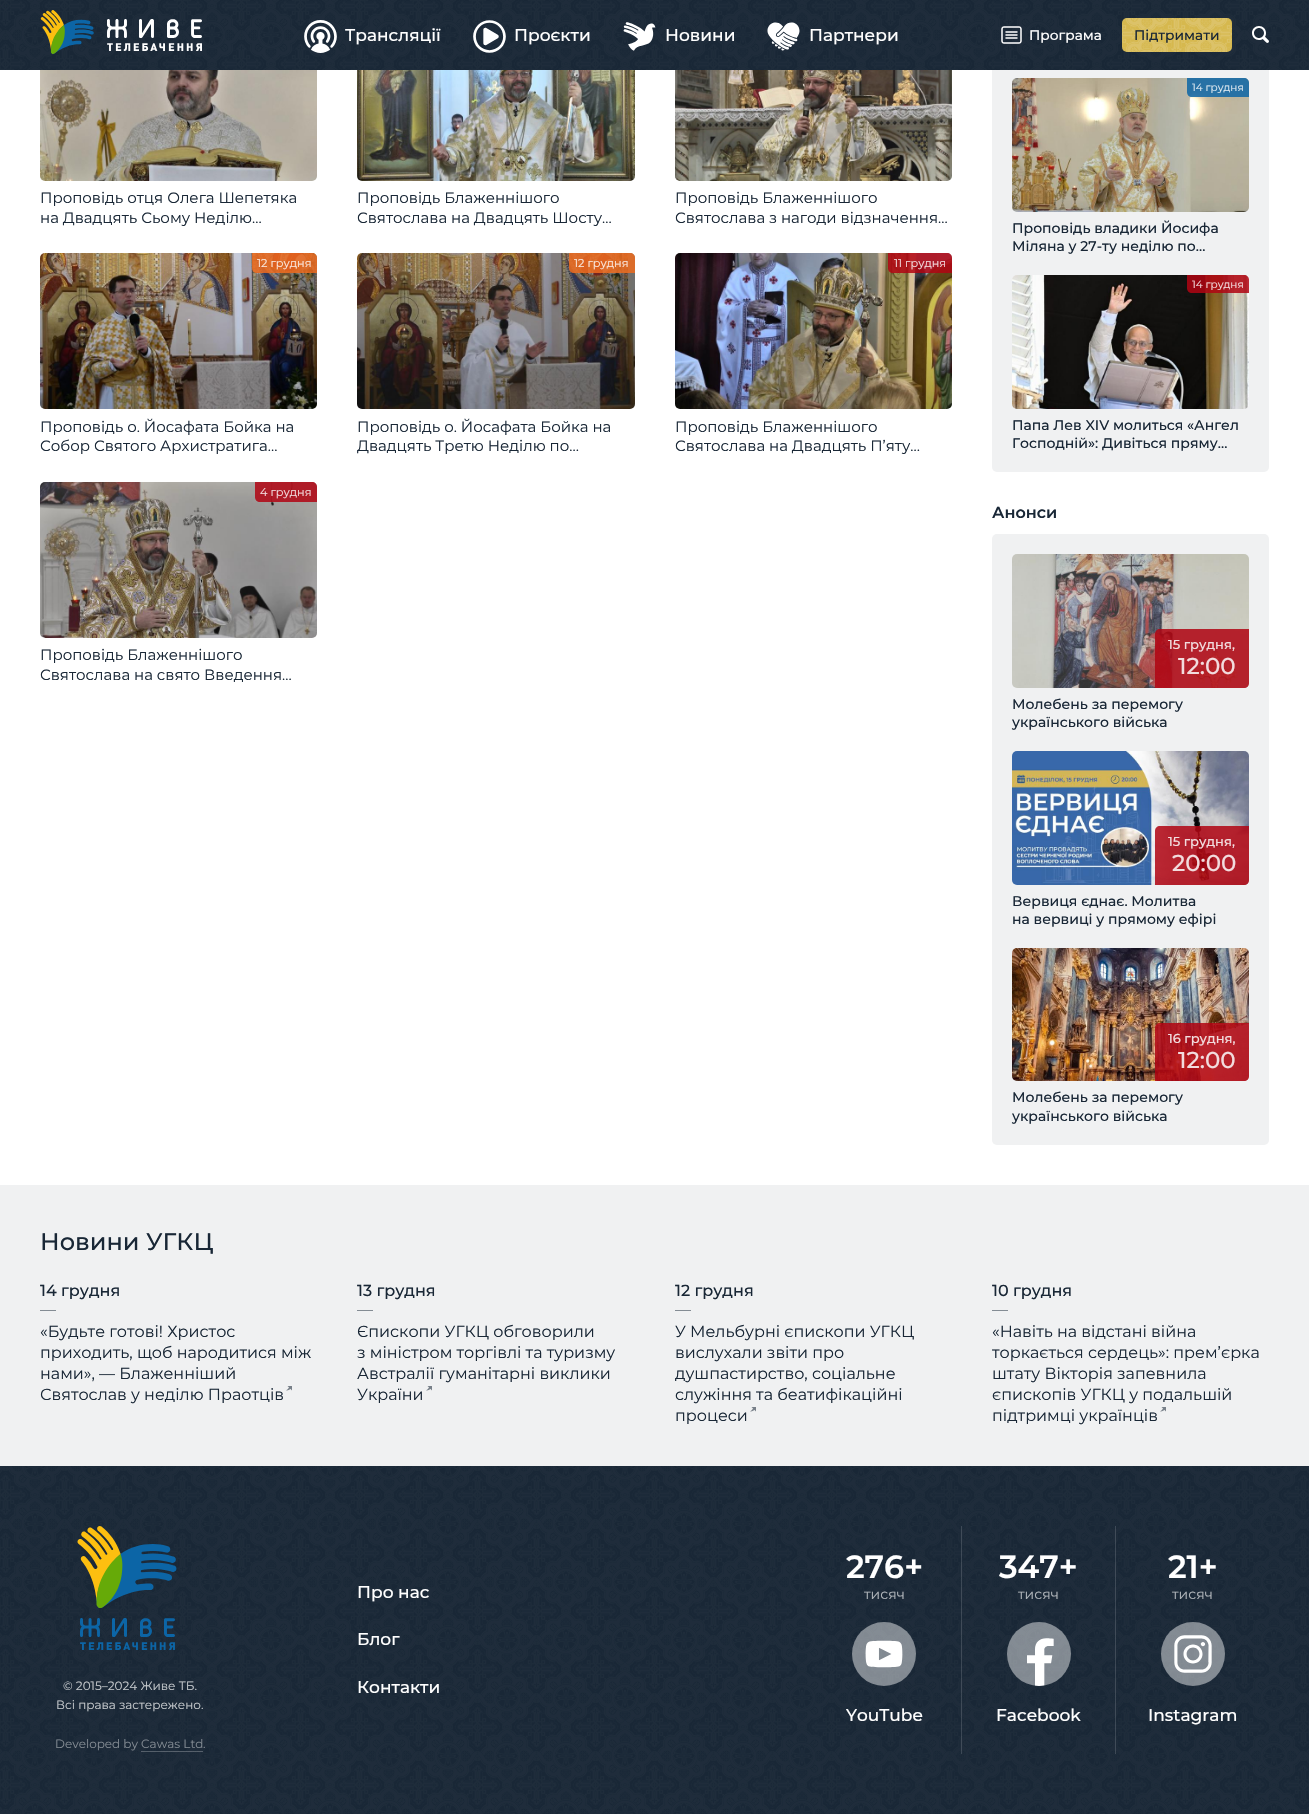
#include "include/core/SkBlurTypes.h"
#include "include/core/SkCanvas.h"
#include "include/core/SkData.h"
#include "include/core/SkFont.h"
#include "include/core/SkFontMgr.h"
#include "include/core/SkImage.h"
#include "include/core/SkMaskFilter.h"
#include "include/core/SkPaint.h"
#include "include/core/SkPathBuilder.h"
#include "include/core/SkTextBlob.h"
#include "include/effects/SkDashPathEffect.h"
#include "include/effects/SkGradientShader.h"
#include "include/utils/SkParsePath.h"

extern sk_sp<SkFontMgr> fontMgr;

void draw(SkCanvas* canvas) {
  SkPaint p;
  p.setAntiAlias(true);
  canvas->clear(SK_ColorWHITE);
  p.setColor(SkColorSetRGB(240, 241, 242));
  canvas->drawRoundRect(SkRect::MakeLTRB(992, -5, 1269, 472), 5, 5, p);
  p.setColor(SkColorSetRGB(25, 39, 54));
  canvas->drawRect(SkRect::MakeLTRB(0, 0, 1309, 70), p);
  canvas->drawImageRect(SkImages::DeferredFromEncodedData(SkData::MakeFromFileName("images/1.png")), SkRect::MakeLTRB(0, 0, 1309, 70), SkSamplingOptions());
  canvas->drawImageRect(SkImages::DeferredFromEncodedData(SkData::MakeFromFileName("images/2.png")), SkRect::MakeLTRB(40, 10, 202, 54), SkSamplingOptions());
  canvas->drawImageRect(SkImages::DeferredFromEncodedData(SkData::MakeFromFileName("images/3.png")), SkRect::MakeLTRB(304, 20, 337, 53), SkSamplingOptions());
  canvas->drawImageRect(SkImages::DeferredFromEncodedData(SkData::MakeFromFileName("images/4.png")), SkRect::MakeLTRB(473, 20, 506, 53), SkSamplingOptions());
  canvas->drawImageRect(SkImages::DeferredFromEncodedData(SkData::MakeFromFileName("images/5.png")), SkRect::MakeLTRB(623, 22, 656, 51), SkSamplingOptions());
  canvas->drawImageRect(SkImages::DeferredFromEncodedData(SkData::MakeFromFileName("images/6.png")), SkRect::MakeLTRB(767, 22, 800, 51), SkSamplingOptions());
  canvas->drawImageRect(SkImages::DeferredFromEncodedData(SkData::MakeFromFileName("images/7.png")), SkRect::MakeLTRB(1001, 26, 1022, 44), SkSamplingOptions());
  p.setColor(SkColorSetRGB(214, 184, 78));
  canvas->drawRoundRect(SkRect::MakeLTRB(1122, 18, 1232, 52), 5, 5, p);
  canvas->drawImageRect(SkImages::DeferredFromEncodedData(SkData::MakeFromFileName("images/8.png")), SkRect::MakeLTRB(1122, 18, 1232, 52), SkSamplingOptions());
  canvas->drawImageRect(SkImages::DeferredFromEncodedData(SkData::MakeFromFileName("images/9.png")), SkRect::MakeLTRB(1252, 26, 1269, 43), SkSamplingOptions());
  canvas->drawImageRect(SkImages::DeferredFromEncodedData(SkData::MakeFromFileName("images/10.png")), SkRect::MakeLTRB(40, 70, 317, 181), SkSamplingOptions());
  canvas->drawImageRect(SkImages::DeferredFromEncodedData(SkData::MakeFromFileName("images/11.png")), SkRect::MakeLTRB(357, 70, 635, 181), SkSamplingOptions());
  canvas->drawImageRect(SkImages::DeferredFromEncodedData(SkData::MakeFromFileName("images/12.png")), SkRect::MakeLTRB(675, 70, 952, 181), SkSamplingOptions());
  canvas->drawImageRect(SkImages::DeferredFromEncodedData(SkData::MakeFromFileName("images/13.png")), SkRect::MakeLTRB(40, 253, 317, 409), SkSamplingOptions());
  p.setColor(SkColorSetARGB(217, 237, 107, 30));
  canvas->drawPath(SkPathBuilder().moveTo(252, 253).lineTo(312, 253).cubicTo(315, 253, 317, 255, 317, 258).lineTo(317, 273).lineTo(257, 273).cubicTo(254, 273, 252, 271, 252, 268).close().detach(), p);
  canvas->drawImageRect(SkImages::DeferredFromEncodedData(SkData::MakeFromFileName("images/14.png")), SkRect::MakeLTRB(357, 253, 635, 409), SkSamplingOptions());
  canvas->drawPath(SkPathBuilder().moveTo(569, 253).lineTo(630, 253).cubicTo(633, 253, 635, 255, 635, 258).lineTo(635, 273).lineTo(574, 273).cubicTo(571, 273, 569, 271, 569, 268).close().detach(), p);
  canvas->drawImageRect(SkImages::DeferredFromEncodedData(SkData::MakeFromFileName("images/15.png")), SkRect::MakeLTRB(675, 253, 952, 409), SkSamplingOptions());
  p.setColor(SkColorSetARGB(217, 176, 3, 18));
  canvas->drawPath(SkPathBuilder().moveTo(888, 253).lineTo(947, 253).cubicTo(950, 253, 952, 255, 952, 258).lineTo(952, 273).lineTo(893, 273).cubicTo(890, 273, 888, 271, 888, 268).close().detach(), p);
  canvas->drawImageRect(SkImages::DeferredFromEncodedData(SkData::MakeFromFileName("images/16.png")), SkRect::MakeLTRB(40, 482, 317, 638), SkSamplingOptions());
  canvas->drawPath(SkPathBuilder().moveTo(255, 482).lineTo(312, 482).cubicTo(315, 482, 317, 484, 317, 487).lineTo(317, 502).lineTo(260, 502).cubicTo(257, 502, 255, 500, 255, 497).close().detach(), p);
  canvas->drawImageRect(SkImages::DeferredFromEncodedData(SkData::MakeFromFileName("images/17.png")), SkRect::MakeLTRB(1012, 78, 1249, 212), SkSamplingOptions());
  p.setColor(SkColorSetARGB(217, 12, 101, 166));
  canvas->drawPath(SkPathBuilder().moveTo(1187, 78).lineTo(1244, 78).cubicTo(1247, 78, 1249, 80, 1249, 83).lineTo(1249, 97).lineTo(1192, 97).cubicTo(1189, 97, 1187, 95, 1187, 92).close().detach(), p);
  canvas->drawImageRect(SkImages::DeferredFromEncodedData(SkData::MakeFromFileName("images/18.png")), SkRect::MakeLTRB(1012, 275, 1249, 409), SkSamplingOptions());
  p.setColor(SkColorSetARGB(217, 176, 3, 18));
  canvas->drawPath(SkPathBuilder().moveTo(1187, 275).lineTo(1244, 275).cubicTo(1247, 275, 1249, 277, 1249, 280).lineTo(1249, 293).lineTo(1192, 293).cubicTo(1189, 293, 1187, 291, 1187, 288).close().detach(), p);
  p.setColor(SkColorSetRGB(240, 241, 242));
  canvas->drawRoundRect(SkRect::MakeLTRB(992, 534, 1269, 1145), 5, 5, p);
  canvas->drawImageRect(SkImages::DeferredFromEncodedData(SkData::MakeFromFileName("images/19.png")), SkRect::MakeLTRB(1012, 554, 1249, 688), SkSamplingOptions());
  p.setColor(SkColorSetARGB(217, 176, 3, 18));
  canvas->drawPath(SkPathBuilder().moveTo(1160, 629).lineTo(1249, 629).lineTo(1249, 683).cubicTo(1249, 686, 1247, 688, 1244, 688).lineTo(1155, 688).lineTo(1155, 634).cubicTo(1155, 631, 1157, 629, 1160, 629).close().detach(), p);
  canvas->drawImageRect(SkImages::DeferredFromEncodedData(SkData::MakeFromFileName("images/20.png")), SkRect::MakeLTRB(1012, 751, 1249, 885), SkSamplingOptions());
  canvas->drawPath(SkPathBuilder().moveTo(1160, 826).lineTo(1249, 826).lineTo(1249, 880).cubicTo(1249, 883, 1247, 885, 1244, 885).lineTo(1155, 885).lineTo(1155, 831).cubicTo(1155, 828, 1157, 826, 1160, 826).close().detach(), p);
  canvas->drawImageRect(SkImages::DeferredFromEncodedData(SkData::MakeFromFileName("images/21.png")), SkRect::MakeLTRB(1012, 948, 1249, 1081), SkSamplingOptions());
  canvas->drawPath(SkPathBuilder().moveTo(1160, 1023).lineTo(1249, 1023).lineTo(1249, 1076).cubicTo(1249, 1079, 1247, 1081, 1244, 1081).lineTo(1155, 1081).lineTo(1155, 1028).cubicTo(1155, 1025, 1157, 1023, 1160, 1023).close().detach(), p);
  p.setColor(SkColorSetRGB(240, 241, 242));
  canvas->drawRect(SkRect::MakeLTRB(0, 1185, 1309, 1466), p);
  p.setColor(SkColorSetRGB(132, 140, 148));
  canvas->drawRect(SkRect::MakeLTRB(40, 1310, 56, 1311), p);
  canvas->drawImageRect(SkImages::DeferredFromEncodedData(SkData::MakeFromFileName("images/22.png")), SkRect::MakeLTRB(286, 1386, 292, 1391), SkSamplingOptions());
  canvas->drawRect(SkRect::MakeLTRB(357, 1310, 373, 1311), p);
  canvas->drawImageRect(SkImages::DeferredFromEncodedData(SkData::MakeFromFileName("images/22.png")), SkRect::MakeLTRB(426, 1386, 432, 1391), SkSamplingOptions());
  canvas->drawRect(SkRect::MakeLTRB(675, 1310, 691, 1311), p);
  canvas->drawImageRect(SkImages::DeferredFromEncodedData(SkData::MakeFromFileName("images/22.png")), SkRect::MakeLTRB(750, 1407, 756, 1412), SkSamplingOptions());
  canvas->drawRect(SkRect::MakeLTRB(992, 1310, 1008, 1311), p);
  canvas->drawImageRect(SkImages::DeferredFromEncodedData(SkData::MakeFromFileName("images/22.png")), SkRect::MakeLTRB(1160, 1407, 1166, 1412), SkSamplingOptions());
  p.setColor(SkColorSetRGB(25, 39, 54));
  canvas->drawRect(SkRect::MakeLTRB(0, 1466, 1309, 1814), p);
  canvas->drawImageRect(SkImages::DeferredFromEncodedData(SkData::MakeFromFileName("images/23.png")), SkRect::MakeLTRB(0, 1466, 1309, 1814), SkSamplingOptions());
  canvas->drawImageRect(SkImages::DeferredFromEncodedData(SkData::MakeFromFileName("images/24.png")), SkRect::MakeLTRB(77, 1526, 177, 1650), SkSamplingOptions());
  p.setColor(SkColorSetARGB(64, 255, 255, 255));
  canvas->drawRect(SkRect::MakeLTRB(141, 1751, 203, 1752), p);
  p.setColor(SkColorSetARGB(115, 255, 255, 255));
  canvas->drawCircle(884, 1654, 32, p);
  canvas->drawImageRect(SkImages::DeferredFromEncodedData(SkData::MakeFromFileName("images/25.png")), SkRect::MakeLTRB(865, 1640, 903, 1668), SkSamplingOptions());
  p.setColor(SkColorSetARGB(38, 255, 255, 255));
  canvas->drawRect(SkRect::MakeLTRB(961, 1526, 962, 1754), p);
  p.setColor(SkColorSetARGB(115, 255, 255, 255));
  canvas->drawCircle(1039, 1654, 32, p);
  canvas->drawImageRect(SkImages::DeferredFromEncodedData(SkData::MakeFromFileName("images/26.png")), SkRect::MakeLTRB(1027, 1638, 1054, 1686), SkSamplingOptions());
  p.setColor(SkColorSetARGB(38, 255, 255, 255));
  canvas->drawRect(SkRect::MakeLTRB(1115, 1526, 1116, 1754), p);
  p.setColor(SkColorSetARGB(115, 255, 255, 255));
  canvas->drawCircle(1193, 1654, 32, p);
  canvas->drawImageRect(SkImages::DeferredFromEncodedData(SkData::MakeFromFileName("images/27.png")), SkRect::MakeLTRB(1174, 1635, 1212, 1673), SkSamplingOptions());
  SkFont font1(fontMgr->matchFamilyStyle("Montserrat", SkFontStyle(500, SkFontStyle::kNormal_Width, SkFontStyle::kUpright_Slant)), 17);
  font1.setSubpixel(true);
  p.setColor(SK_ColorWHITE);
  canvas->drawString("Трансляції", 345, 41, font1, p);
  canvas->drawString("Проєкти", 514, 41, font1, p);
  canvas->drawString("Новини", 665, 41, font1, p);
  canvas->drawString("Партнери", 809, 41, font1, p);
  SkFont font2(fontMgr->matchFamilyStyle("Montserrat", SkFontStyle(500, SkFontStyle::kNormal_Width, SkFontStyle::kUpright_Slant)), 13.75f);
  font2.setSubpixel(true);
  canvas->drawString("Програма", 1029, 40, font2, p);
  p.setColor(SkColorSetRGB(25, 39, 54));
  canvas->drawString("Підтримати", 1134, 40, font2, p);
  SkFont font3(fontMgr->matchFamilyStyle("Montserrat", SkFontStyle::Normal()), 15);
  font3.setSubpixel(true);
  canvas->drawString("Проповідь отця Олега Шепетяка", 40, 203, font3, p);
  canvas->drawString("на Двадцять Сьому Неділю…", 40, 223, font3, p);
  canvas->drawString("Проповідь Блаженнішого", 357, 203, font3, p);
  canvas->drawString("Святослава на Двадцять Шосту…", 357, 223, font3, p);
  canvas->drawString("Проповідь Блаженнішого", 675, 203, font3, p);
  canvas->drawString("Святослава з нагоди відзначення…", 675, 223, font3, p);
  SkFont font4(fontMgr->matchFamilyStyle("Montserrat", SkFontStyle::Normal()), 11.25f);
  font4.setSubpixel(true);
  p.setColor(SkColorSetRGB(250, 232, 222));
  canvas->drawString("12 грудня", 257, 267, font4, p);
  p.setColor(SkColorSetRGB(25, 39, 54));
  canvas->drawString("Проповідь о. Йосафата Бойка на", 40, 432, font3, p);
  canvas->drawString("Собор Святого Архистратига…", 40, 451, font3, p);
  p.setColor(SkColorSetRGB(250, 232, 222));
  canvas->drawString("12 грудня", 574, 267, font4, p);
  p.setColor(SkColorSetRGB(25, 39, 54));
  canvas->drawString("Проповідь о. Йосафата Бойка на", 357, 432, font3, p);
  canvas->drawString("Двадцять Третю Неділю по…", 357, 451, font3, p);
  p.setColor(SkColorSetRGB(242, 220, 222));
  canvas->drawString("11 грудня", 894, 267, font4, p);
  p.setColor(SkColorSetRGB(25, 39, 54));
  canvas->drawString("Проповідь Блаженнішого", 675, 432, font3, p);
  canvas->drawString("Святослава на Двадцять П’яту…", 675, 451, font3, p);
  p.setColor(SkColorSetRGB(242, 220, 222));
  canvas->drawString("4 грудня", 260, 496, font4, p);
  p.setColor(SkColorSetRGB(25, 39, 54));
  canvas->drawString("Проповідь Блаженнішого", 40, 660, font3, p);
  canvas->drawString("Святослава на свято Введення…", 40, 680, font3, p);
  SkFont font5(fontMgr->matchFamilyStyle("Montserrat", SkFontStyle::Normal()), 10.5f);
  font5.setSubpixel(true);
  p.setColor(SkColorSetRGB(223, 234, 241));
  canvas->drawString("14 грудня", 1192, 91, font5, p);
  SkFont font6(fontMgr->matchFamilyStyle("Montserrat", SkFontStyle(500, SkFontStyle::kNormal_Width, SkFontStyle::kUpright_Slant)), 14);
  font6.setSubpixel(true);
  p.setColor(SkColorSetRGB(25, 39, 54));
  canvas->drawString("Проповідь владики Йосифа", 1012, 233, font6, p);
  canvas->drawString("Міляна у 27-ту неділю по…", 1012, 251, font6, p);
  p.setColor(SkColorSetRGB(242, 220, 222));
  canvas->drawString("14 грудня", 1192, 288, font5, p);
  p.setColor(SkColorSetRGB(25, 39, 54));
  canvas->drawString("Папа Лев XIV молиться «Ангел", 1012, 430, font6, p);
  canvas->drawString("Господній»: Дивіться пряму…", 1012, 448, font6, p);
  SkFont font7(fontMgr->matchFamilyStyle("Montserrat", SkFontStyle(600, SkFontStyle::kNormal_Width, SkFontStyle::kUpright_Slant)), 16);
  font7.setSubpixel(true);
  canvas->drawString("Анонси", 992, 518, font7, p);
  SkFont font8(fontMgr->matchFamilyStyle("Montserrat", SkFontStyle(500, SkFontStyle::kNormal_Width, SkFontStyle::kUpright_Slant)), 13);
  font8.setSubpixel(true);
  p.setColor(SkColorSetRGB(242, 220, 222));
  canvas->drawString("15 грудня,", 1168, 649, font8, p);
  SkFont font9(fontMgr->matchFamilyStyle("Montserrat", SkFontStyle(500, SkFontStyle::kNormal_Width, SkFontStyle::kUpright_Slant)), 23);
  font9.setSubpixel(true);
  canvas->drawString("12:00", 1178, 674, font9, p);
  p.setColor(SkColorSetRGB(25, 39, 54));
  canvas->drawString("Молебень за перемогу", 1012, 709, font6, p);
  canvas->drawString("українського війська", 1012, 727, font6, p);
  p.setColor(SkColorSetRGB(242, 220, 222));
  canvas->drawString("15 грудня,", 1168, 846, font8, p);
  canvas->drawString("20:00", 1172, 871, font9, p);
  p.setColor(SkColorSetRGB(25, 39, 54));
  canvas->drawString("Вервиця єднає. Молитва", 1012, 906, font6, p);
  canvas->drawString("на вервиці у прямому ефірі", 1012, 924, font6, p);
  p.setColor(SkColorSetRGB(242, 220, 222));
  canvas->drawString("16 грудня,", 1168, 1043, font8, p);
  canvas->drawString("12:00", 1178, 1068, font9, p);
  p.setColor(SkColorSetRGB(25, 39, 54));
  canvas->drawString("Молебень за перемогу", 1012, 1102, font6, p);
  canvas->drawString("українського війська", 1012, 1121, font6, p);
  SkFont font10(fontMgr->matchFamilyStyle("Montserrat", SkFontStyle(500, SkFontStyle::kNormal_Width, SkFontStyle::kUpright_Slant)), 24);
  font10.setSubpixel(true);
  canvas->drawString("Новини УГКЦ", 40, 1250, font10, p);
  SkFont font11(fontMgr->matchFamilyStyle("Montserrat", SkFontStyle(500, SkFontStyle::kNormal_Width, SkFontStyle::kUpright_Slant)), 16);
  font11.setSubpixel(true);
  canvas->drawString("14 грудня", 40, 1296, font11, p);
  SkFont font12(fontMgr->matchFamilyStyle("Montserrat", SkFontStyle::Normal()), 16);
  font12.setSubpixel(true);
  canvas->drawString("«Будьте готові! Христос", 40, 1337, font12, p);
  canvas->drawString("приходить, щоб народитися між", 40, 1358, font12, p);
  canvas->drawString("нами», — Блаженніший", 40, 1379, font12, p);
  canvas->drawString("Святослав у неділю Праотців", 40, 1400, font12, p);
  canvas->drawString("13 грудня", 357, 1296, font11, p);
  canvas->drawString("Єпископи УГКЦ обговорили", 357, 1337, font12, p);
  canvas->drawString("з міністром торгівлі та туризму", 357, 1358, font12, p);
  canvas->drawString("Австралії гуманітарні виклики", 357, 1379, font12, p);
  canvas->drawString("України", 357, 1400, font12, p);
  canvas->drawString("12 грудня", 675, 1296, font11, p);
  canvas->drawString("У Мельбурні єпископи УГКЦ", 675, 1337, font12, p);
  canvas->drawString("вислухали звіти про", 675, 1358, font12, p);
  canvas->drawString("душпастирство, соціальне", 675, 1379, font12, p);
  canvas->drawString("служіння та беатифікаційні", 675, 1400, font12, p);
  canvas->drawString("процеси", 675, 1421, font12, p);
  canvas->drawString("10 грудня", 992, 1296, font11, p);
  canvas->drawString("«Навіть на відстані війна", 992, 1337, font12, p);
  canvas->drawString("торкається сердець»: прем’єрка", 992, 1358, font12, p);
  canvas->drawString("штату Вікторія запевнила", 992, 1379, font12, p);
  canvas->drawString("єпископів УГКЦ у подальшій", 992, 1400, font12, p);
  canvas->drawString("підтримці українців", 992, 1421, font12, p);
  SkFont font13(fontMgr->matchFamilyStyle("Montserrat", SkFontStyle::Normal()), 12);
  font13.setSubpixel(true);
  p.setColor(SkColorSetRGB(198, 202, 205));
  canvas->drawString("© 2015–2024 Живе ТБ.", 63, 1690, font13, p);
  canvas->drawString("Всі права застережено.", 56, 1709, font13, p);
  p.setColor(SkColorSetRGB(130, 138, 146));
  canvas->drawString("Developed by Cawas Ltd", 55, 1748, font13, p);
  canvas->drawString(".", 203, 1748, font13, p);
  p.setColor(SK_ColorWHITE);
  canvas->drawString("Про нас", 357, 1598, font1, p);
  canvas->drawString("Блог", 357, 1645, font1, p);
  canvas->drawString("Контакти", 357, 1693, font1, p);
  SkFont font14(fontMgr->matchFamilyStyle("Montserrat", SkFontStyle(600, SkFontStyle::kNormal_Width, SkFontStyle::kUpright_Slant)), 32);
  font14.setSubpixel(true);
  canvas->drawString("276+", 846, 1578, font14, p);
  SkFont font15(fontMgr->matchFamilyStyle("Montserrat", SkFontStyle::Normal()), 14);
  font15.setSubpixel(true);
  p.setColor(SkColorSetRGB(176, 181, 186));
  canvas->drawString("тисяч", 864, 1599, font15, p);
  p.setColor(SK_ColorWHITE);
  canvas->drawString("YouTube", 846, 1721, font1, p);
  canvas->drawString("347+", 999, 1578, font14, p);
  p.setColor(SkColorSetRGB(176, 181, 186));
  canvas->drawString("тисяч", 1018, 1599, font15, p);
  p.setColor(SK_ColorWHITE);
  canvas->drawString("Facebook", 996, 1721, font1, p);
  canvas->drawString("21+", 1168, 1578, font14, p);
  p.setColor(SkColorSetRGB(176, 181, 186));
  canvas->drawString("тисяч", 1172, 1599, font15, p);
  p.setColor(SK_ColorWHITE);
  canvas->drawString("Instagram", 1148, 1721, font1, p);
}
